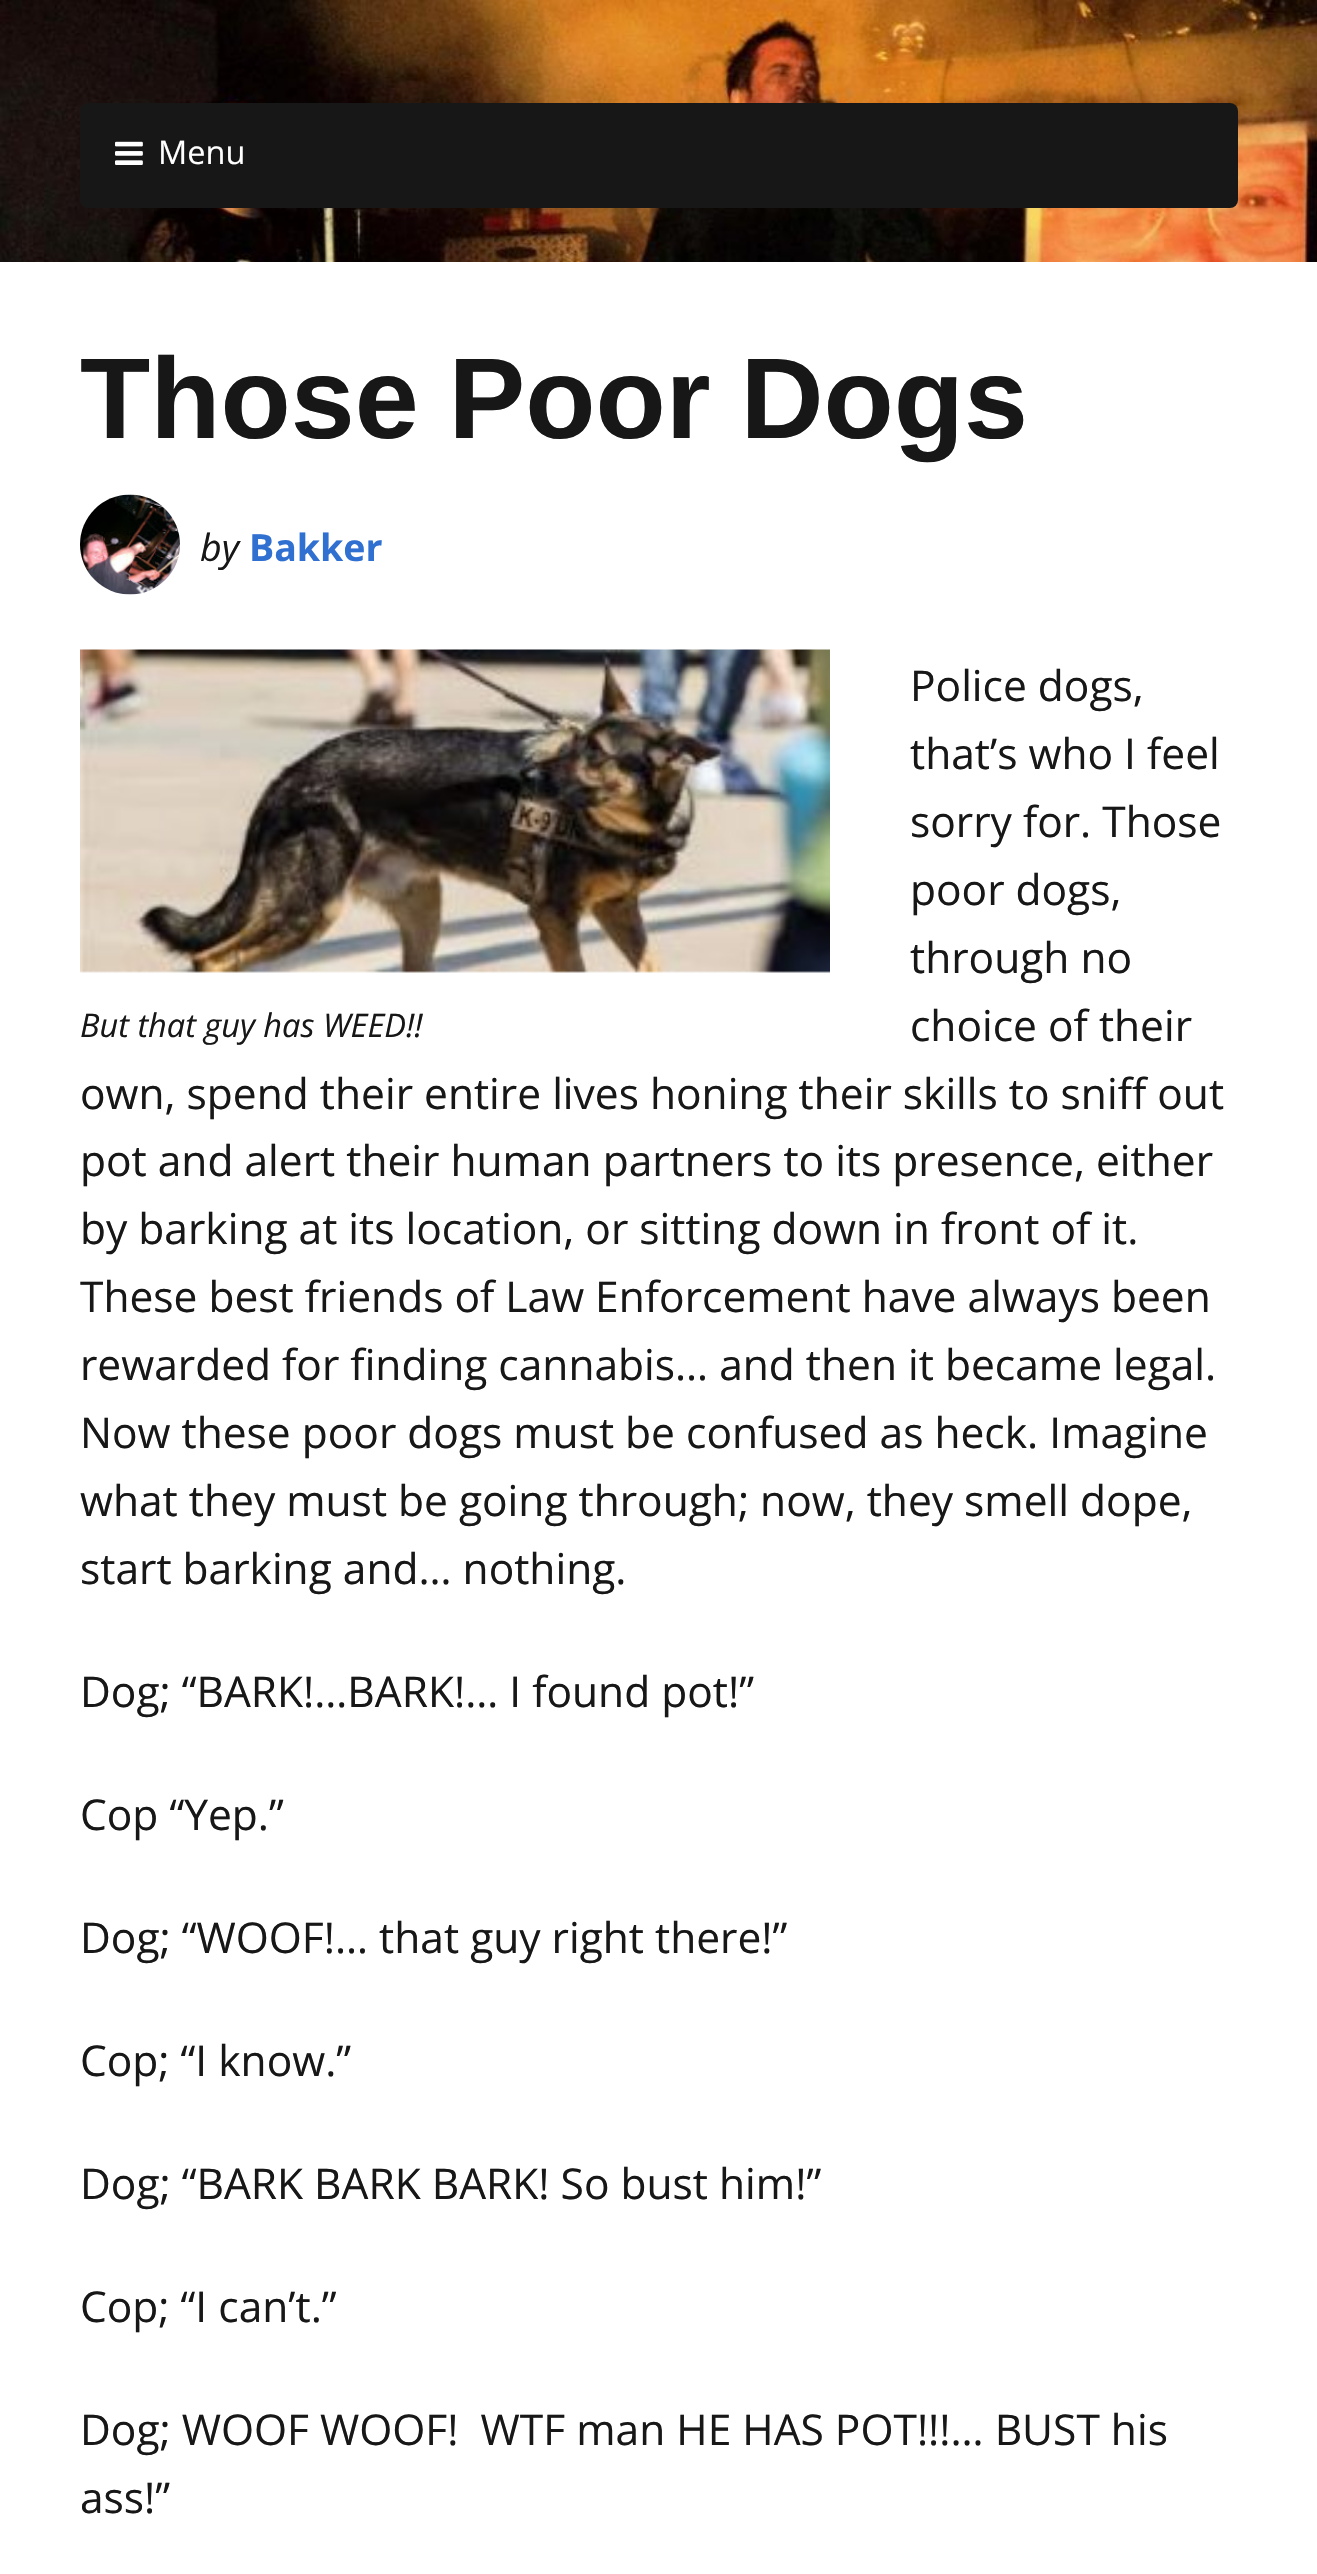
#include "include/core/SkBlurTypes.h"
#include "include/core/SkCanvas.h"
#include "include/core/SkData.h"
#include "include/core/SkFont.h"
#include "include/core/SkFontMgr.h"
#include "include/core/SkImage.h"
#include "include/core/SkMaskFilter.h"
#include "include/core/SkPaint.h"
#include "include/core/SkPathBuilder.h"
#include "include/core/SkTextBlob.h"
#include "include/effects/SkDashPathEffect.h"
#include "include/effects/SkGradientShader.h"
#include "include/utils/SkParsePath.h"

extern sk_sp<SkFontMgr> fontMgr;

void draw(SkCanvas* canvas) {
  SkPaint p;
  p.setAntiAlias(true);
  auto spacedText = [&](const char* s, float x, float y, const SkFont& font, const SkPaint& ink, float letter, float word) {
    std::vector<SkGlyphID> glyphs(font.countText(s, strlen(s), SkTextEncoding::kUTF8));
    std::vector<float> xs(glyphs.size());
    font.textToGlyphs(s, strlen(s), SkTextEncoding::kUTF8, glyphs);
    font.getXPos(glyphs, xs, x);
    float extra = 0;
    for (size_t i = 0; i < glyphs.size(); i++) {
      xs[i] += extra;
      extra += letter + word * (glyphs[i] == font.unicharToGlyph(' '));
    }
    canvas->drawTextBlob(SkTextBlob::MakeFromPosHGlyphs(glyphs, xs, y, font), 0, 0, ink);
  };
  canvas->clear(SK_ColorWHITE);
  canvas->drawImageRect(SkImages::DeferredFromEncodedData(SkData::MakeFromFileName("images/1.png")), SkRect::MakeLTRB(0, 0, 1317, 262), SkSamplingOptions());
  p.setColor(SkColorSetRGB(23, 23, 23));
  canvas->drawRoundRect(SkRect::MakeLTRB(80, 103, 1238, 208), 8, 8, p);
  canvas->drawImageRect(SkImages::DeferredFromEncodedData(SkData::MakeFromFileName("images/2.png")), SkRect::MakeLTRB(115, 141, 143, 165), SkSamplingOptions());
  canvas->drawImageRect(SkImages::DeferredFromEncodedData(SkData::MakeFromFileName("images/3.png")), SkRect::MakeLTRB(80, 494, 180, 595), SkSamplingOptions());
  canvas->drawImageRect(SkImages::DeferredFromEncodedData(SkData::MakeFromFileName("images/4.png")), SkRect::MakeLTRB(80, 649, 830, 973), SkSamplingOptions());
  SkFont font1(fontMgr->matchFamilyStyle("Open Sans", SkFontStyle::Normal()), 32.5f);
  font1.setSubpixel(true);
  p.setColor(SK_ColorWHITE);
  canvas->drawString("Menu", 158, 164, font1, p);
  SkFont font2(fontMgr->matchFamilyStyle("Liberation Sans", SkFontStyle::Bold()), 115);
  font2.setSubpixel(true);
  p.setColor(SkColorSetRGB(23, 23, 23));
  spacedText("Those Poor Dogs", 80, 438, font2, p, 0, -2);
  SkFont font3(fontMgr->matchFamilyStyle("Open Sans", SkFontStyle::Italic()), 37.5f);
  font3.setSubpixel(true);
  canvas->drawString("by", 200, 561, font3, p);
  SkFont font4(fontMgr->matchFamilyStyle("Open Sans", SkFontStyle::Bold()), 37.5f);
  font4.setSubpixel(true);
  p.setColor(SkColorSetRGB(48, 112, 209));
  canvas->drawString("Bakker", 249, 561, font4, p);
  SkFont font5(fontMgr->matchFamilyStyle("Open Sans", SkFontStyle::Normal()), 42.5f);
  font5.setSubpixel(true);
  p.setColor(SkColorSetRGB(23, 23, 23));
  canvas->drawString("Police dogs,", 910, 701, font5, p);
  canvas->drawString("that’s who I feel", 910, 769, font5, p);
  canvas->drawString("sorry for. Those", 910, 837, font5, p);
  canvas->drawString("poor dogs,", 910, 905, font5, p);
  canvas->drawString("through no", 910, 973, font5, p);
  canvas->drawString("choice of their", 910, 1041, font5, p);
  canvas->drawString("own, spend their entire lives honing their skills to sniff out", 80, 1109, font5, p);
  canvas->drawString("pot and alert their human partners to its presence, either", 80, 1176, font5, p);
  canvas->drawString("by barking at its location, or sitting down in front of it.", 80, 1244, font5, p);
  canvas->drawString("These best friends of Law Enforcement have always been", 80, 1312, font5, p);
  canvas->drawString("rewarded for finding cannabis… and then it became legal.", 80, 1380, font5, p);
  canvas->drawString("Now these poor dogs must be confused as heck. Imagine", 80, 1448, font5, p);
  canvas->drawString("what they must be going through; now, they smell dope,", 80, 1516, font5, p);
  canvas->drawString("start barking and… nothing.", 80, 1584, font5, p);
  SkFont font6(fontMgr->matchFamilyStyle("Open Sans", SkFontStyle::Italic()), 32.5f);
  font6.setSubpixel(true);
  canvas->drawString("But that guy has WEED!!", 80, 1037, font6, p);
  canvas->drawString("Dog; “BARK!…BARK!… I found pot!”", 80, 1707, font5, p);
  canvas->drawString("Cop “Yep.”", 80, 1830, font5, p);
  canvas->drawString("Dog; “WOOF!… that guy right there!”", 80, 1953, font5, p);
  canvas->drawString("Cop; “I know.”", 80, 2076, font5, p);
  canvas->drawString("Dog; “BARK BARK BARK! So bust him!”", 80, 2199, font5, p);
  canvas->drawString("Cop; “I can’t.”", 80, 2322, font5, p);
  canvas->drawString("Dog; WOOF WOOF!  WTF man HE HAS POT!!!… BUST his", 80, 2445, font5, p);
  canvas->drawString("ass!”", 80, 2513, font5, p);
}
